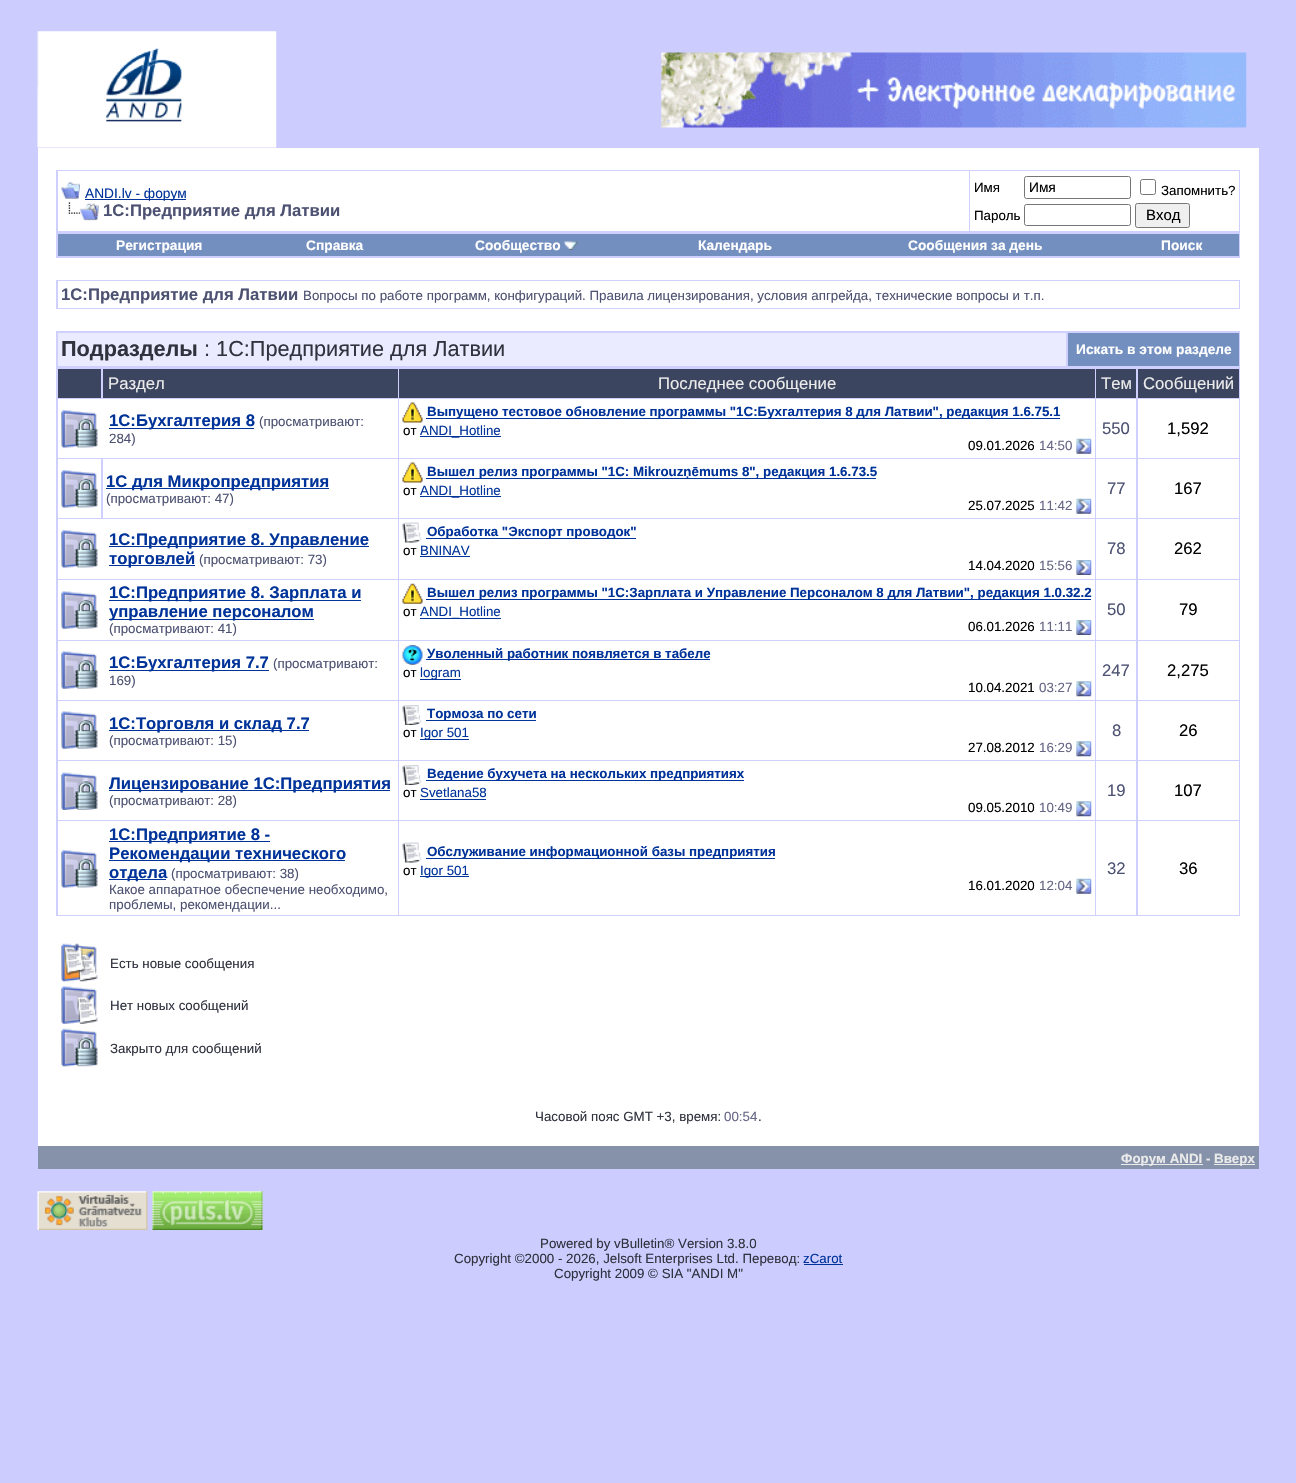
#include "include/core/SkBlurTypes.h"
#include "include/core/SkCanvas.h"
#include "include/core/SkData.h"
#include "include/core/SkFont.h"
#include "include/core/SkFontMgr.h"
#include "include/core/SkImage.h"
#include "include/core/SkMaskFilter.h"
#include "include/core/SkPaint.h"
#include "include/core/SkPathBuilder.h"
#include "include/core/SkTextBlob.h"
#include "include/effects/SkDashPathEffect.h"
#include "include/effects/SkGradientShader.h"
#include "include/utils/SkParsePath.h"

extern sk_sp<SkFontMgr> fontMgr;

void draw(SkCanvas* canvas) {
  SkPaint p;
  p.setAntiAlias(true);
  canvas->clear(SkColorSetRGB(204, 204, 255));
  canvas->drawImageRect(SkImages::DeferredFromEncodedData(SkData::MakeFromFileName("images/1.png")), SkRect::MakeLTRB(37, 31, 277, 148), SkSamplingOptions());
  canvas->drawImageRect(SkImages::DeferredFromEncodedData(SkData::MakeFromFileName("images/2.png")), SkRect::MakeLTRB(661, 52, 1247, 128), SkSamplingOptions());
  p.setColor(SK_ColorWHITE);
  canvas->drawRect(SkRect::MakeLTRB(38, 148, 1259, 1146), p);
  p.setColor(SkColorSetRGB(208, 208, 255));
  canvas->drawRect(SkRect::MakeLTRB(56, 170, 1240, 258), p);
  p.setColor(SK_ColorWHITE);
  canvas->drawRect(SkRect::MakeLTRB(58, 171, 969, 231), p);
  canvas->drawImageRect(SkImages::DeferredFromEncodedData(SkData::MakeFromFileName("images/3.png")), SkRect::MakeLTRB(61, 182, 80, 199), SkSamplingOptions());
  p.setColor(SkColorSetRGB(0, 51, 153));
  canvas->drawRect(SkRect::MakeLTRB(85, 199, 186, 200), p);
  canvas->drawImageRect(SkImages::DeferredFromEncodedData(SkData::MakeFromFileName("images/4.png")), SkRect::MakeLTRB(68, 202, 99, 221), SkSamplingOptions());
  p.setColor(SK_ColorWHITE);
  canvas->drawRect(SkRect::MakeLTRB(970, 171, 1239, 231), p);
  p.setStyle(SkPaint::kStroke_Style);
  p.setStrokeWidth(1);
  p.setColor(SkColorSetRGB(118, 118, 118));
  canvas->drawRoundRect(SkRect::MakeLTRB(1024.5f, 176.5f, 1130.5f, 198.5f), 2, 2, p);
  canvas->drawRoundRect(SkRect::MakeLTRB(1140.5f, 179.5f, 1155.5f, 194.5f), 2, 2, p);
  canvas->drawRoundRect(SkRect::MakeLTRB(1024.5f, 204.5f, 1130.5f, 225.5f), 2, 2, p);
  p.setStyle(SkPaint::kFill_Style);
  p.setColor(SkColorSetRGB(239, 239, 239));
  canvas->drawRoundRect(SkRect::MakeLTRB(1135.5f, 203.5f, 1189.5f, 227.5f), 2, 2, p);
  p.setStyle(SkPaint::kStroke_Style);
  p.setColor(SkColorSetRGB(118, 118, 118));
  canvas->drawRoundRect(SkRect::MakeLTRB(1135.5f, 203.5f, 1189.5f, 227.5f), 2, 2, p);
  p.setStyle(SkPaint::kFill_Style);
  p.setColor(SkColorSetRGB(115, 143, 191));
  canvas->drawRect(SkRect::MakeLTRB(58, 234, 1239, 256), p);
  canvas->drawImageRect(SkImages::DeferredFromEncodedData(SkData::MakeFromFileName("images/5.png")), SkRect::MakeLTRB(563, 241, 578, 250), SkSamplingOptions());
  p.setColor(SkColorSetRGB(208, 208, 255));
  canvas->drawRect(SkRect::MakeLTRB(56, 280, 1240, 309), p);
  p.setColor(SK_ColorWHITE);
  canvas->drawRect(SkRect::MakeLTRB(58, 281, 1239, 308), p);
  p.setColor(SkColorSetRGB(208, 208, 255));
  canvas->drawRect(SkRect::MakeLTRB(56, 331, 1240, 916), p);
  p.setColor(SkColorSetRGB(235, 235, 255));
  canvas->drawRect(SkRect::MakeLTRB(58, 333, 1066, 366), p);
  p.setColor(SkColorSetRGB(115, 143, 191));
  canvas->drawRect(SkRect::MakeLTRB(1068, 333, 1239, 366), p);
  p.setColor(SkColorSetRGB(60, 69, 95));
  canvas->drawRect(SkRect::MakeLTRB(58, 369, 101, 398), p);
  canvas->drawRect(SkRect::MakeLTRB(103, 369, 398, 398), p);
  canvas->drawRect(SkRect::MakeLTRB(399, 369, 1095, 398), p);
  canvas->drawRect(SkRect::MakeLTRB(1096, 369, 1136, 398), p);
  canvas->drawRect(SkRect::MakeLTRB(1138, 369, 1239, 398), p);
  p.setColor(SK_ColorWHITE);
  canvas->drawRect(SkRect::MakeLTRB(58, 399, 398, 458), p);
  canvas->drawImageRect(SkImages::DeferredFromEncodedData(SkData::MakeFromFileName("images/6.png")), SkRect::MakeLTRB(61, 410, 98, 448), SkSamplingOptions());
  p.setColor(SkColorSetRGB(0, 51, 153));
  canvas->drawRect(SkRect::MakeLTRB(109, 428, 254, 429), p);
  p.setColor(SK_ColorWHITE);
  canvas->drawRect(SkRect::MakeLTRB(399, 399, 1095, 458), p);
  canvas->drawImageRect(SkImages::DeferredFromEncodedData(SkData::MakeFromFileName("images/7.png")), SkRect::MakeLTRB(402, 402, 423, 423), SkSamplingOptions());
  p.setColor(SkColorSetRGB(0, 51, 153));
  canvas->drawRect(SkRect::MakeLTRB(426, 418, 1060, 419), p);
  canvas->drawRect(SkRect::MakeLTRB(420, 436, 501, 437), p);
  canvas->drawImageRect(SkImages::DeferredFromEncodedData(SkData::MakeFromFileName("images/8.png")), SkRect::MakeLTRB(1076, 438, 1092, 454), SkSamplingOptions());
  p.setColor(SK_ColorWHITE);
  canvas->drawRect(SkRect::MakeLTRB(1096, 399, 1136, 458), p);
  canvas->drawRect(SkRect::MakeLTRB(1138, 399, 1239, 458), p);
  canvas->drawRect(SkRect::MakeLTRB(58, 459, 101, 518), p);
  canvas->drawImageRect(SkImages::DeferredFromEncodedData(SkData::MakeFromFileName("images/6.png")), SkRect::MakeLTRB(61, 470, 98, 508), SkSamplingOptions());
  canvas->drawRect(SkRect::MakeLTRB(103, 459, 398, 518), p);
  p.setColor(SkColorSetRGB(0, 51, 153));
  canvas->drawRect(SkRect::MakeLTRB(106, 488, 329, 489), p);
  p.setColor(SK_ColorWHITE);
  canvas->drawRect(SkRect::MakeLTRB(399, 459, 1095, 518), p);
  canvas->drawImageRect(SkImages::DeferredFromEncodedData(SkData::MakeFromFileName("images/7.png")), SkRect::MakeLTRB(402, 462, 423, 483), SkSamplingOptions());
  p.setColor(SkColorSetRGB(0, 51, 153));
  canvas->drawRect(SkRect::MakeLTRB(426, 478, 876, 479), p);
  canvas->drawRect(SkRect::MakeLTRB(420, 496, 501, 497), p);
  canvas->drawImageRect(SkImages::DeferredFromEncodedData(SkData::MakeFromFileName("images/8.png")), SkRect::MakeLTRB(1076, 498, 1092, 514), SkSamplingOptions());
  p.setColor(SK_ColorWHITE);
  canvas->drawRect(SkRect::MakeLTRB(1096, 459, 1136, 518), p);
  canvas->drawRect(SkRect::MakeLTRB(1138, 459, 1239, 518), p);
  canvas->drawRect(SkRect::MakeLTRB(58, 519, 398, 579), p);
  canvas->drawImageRect(SkImages::DeferredFromEncodedData(SkData::MakeFromFileName("images/6.png")), SkRect::MakeLTRB(61, 530, 98, 568), SkSamplingOptions());
  p.setColor(SkColorSetRGB(0, 51, 153));
  canvas->drawRect(SkRect::MakeLTRB(109, 546, 369, 547), p);
  canvas->drawRect(SkRect::MakeLTRB(109, 565, 195, 566), p);
  p.setColor(SK_ColorWHITE);
  canvas->drawRect(SkRect::MakeLTRB(399, 519, 1095, 579), p);
  canvas->drawImageRect(SkImages::DeferredFromEncodedData(SkData::MakeFromFileName("images/9.png")), SkRect::MakeLTRB(402, 522, 422, 543), SkSamplingOptions());
  p.setColor(SkColorSetRGB(0, 51, 153));
  canvas->drawRect(SkRect::MakeLTRB(426, 538, 636, 539), p);
  canvas->drawRect(SkRect::MakeLTRB(420, 556, 470, 557), p);
  canvas->drawImageRect(SkImages::DeferredFromEncodedData(SkData::MakeFromFileName("images/10.png")), SkRect::MakeLTRB(1076, 560, 1092, 575), SkSamplingOptions());
  p.setColor(SK_ColorWHITE);
  canvas->drawRect(SkRect::MakeLTRB(1096, 519, 1136, 579), p);
  canvas->drawRect(SkRect::MakeLTRB(1138, 519, 1239, 579), p);
  canvas->drawRect(SkRect::MakeLTRB(58, 580, 398, 640), p);
  canvas->drawImageRect(SkImages::DeferredFromEncodedData(SkData::MakeFromFileName("images/11.png")), SkRect::MakeLTRB(61, 591, 98, 629), SkSamplingOptions());
  p.setColor(SkColorSetRGB(0, 51, 153));
  canvas->drawRect(SkRect::MakeLTRB(109, 600, 361, 601), p);
  canvas->drawRect(SkRect::MakeLTRB(109, 619, 314, 620), p);
  p.setColor(SK_ColorWHITE);
  canvas->drawRect(SkRect::MakeLTRB(399, 580, 1095, 640), p);
  canvas->drawImageRect(SkImages::DeferredFromEncodedData(SkData::MakeFromFileName("images/12.png")), SkRect::MakeLTRB(402, 583, 423, 604), SkSamplingOptions());
  p.setColor(SkColorSetRGB(0, 51, 153));
  canvas->drawRect(SkRect::MakeLTRB(426, 599, 1091, 600), p);
  canvas->drawRect(SkRect::MakeLTRB(420, 618, 501, 619), p);
  canvas->drawImageRect(SkImages::DeferredFromEncodedData(SkData::MakeFromFileName("images/10.png")), SkRect::MakeLTRB(1076, 620, 1092, 635), SkSamplingOptions());
  p.setColor(SK_ColorWHITE);
  canvas->drawRect(SkRect::MakeLTRB(1096, 580, 1136, 640), p);
  canvas->drawRect(SkRect::MakeLTRB(1138, 580, 1239, 640), p);
  canvas->drawRect(SkRect::MakeLTRB(58, 641, 398, 700), p);
  canvas->drawImageRect(SkImages::DeferredFromEncodedData(SkData::MakeFromFileName("images/11.png")), SkRect::MakeLTRB(61, 651, 98, 689), SkSamplingOptions());
  p.setColor(SkColorSetRGB(0, 51, 153));
  canvas->drawRect(SkRect::MakeLTRB(109, 670, 269, 671), p);
  p.setColor(SK_ColorWHITE);
  canvas->drawRect(SkRect::MakeLTRB(399, 641, 1095, 700), p);
  canvas->drawImageRect(SkImages::DeferredFromEncodedData(SkData::MakeFromFileName("images/13.png")), SkRect::MakeLTRB(402, 645, 423, 665), SkSamplingOptions());
  p.setColor(SkColorSetRGB(0, 51, 153));
  canvas->drawRect(SkRect::MakeLTRB(426, 659, 710, 660), p);
  canvas->drawRect(SkRect::MakeLTRB(420, 679, 461, 680), p);
  canvas->drawImageRect(SkImages::DeferredFromEncodedData(SkData::MakeFromFileName("images/14.png")), SkRect::MakeLTRB(1076, 681, 1092, 697), SkSamplingOptions());
  p.setColor(SK_ColorWHITE);
  canvas->drawRect(SkRect::MakeLTRB(1096, 641, 1136, 700), p);
  canvas->drawRect(SkRect::MakeLTRB(1138, 641, 1239, 700), p);
  canvas->drawRect(SkRect::MakeLTRB(58, 701, 398, 760), p);
  canvas->drawImageRect(SkImages::DeferredFromEncodedData(SkData::MakeFromFileName("images/11.png")), SkRect::MakeLTRB(61, 711, 98, 749), SkSamplingOptions());
  p.setColor(SkColorSetRGB(0, 51, 153));
  canvas->drawRect(SkRect::MakeLTRB(109, 730, 309, 731), p);
  p.setColor(SK_ColorWHITE);
  canvas->drawRect(SkRect::MakeLTRB(399, 701, 1095, 760), p);
  canvas->drawImageRect(SkImages::DeferredFromEncodedData(SkData::MakeFromFileName("images/15.png")), SkRect::MakeLTRB(402, 705, 422, 725), SkSamplingOptions());
  p.setColor(SkColorSetRGB(0, 51, 153));
  canvas->drawRect(SkRect::MakeLTRB(426, 720, 536, 721), p);
  canvas->drawRect(SkRect::MakeLTRB(420, 739, 469, 740), p);
  canvas->drawImageRect(SkImages::DeferredFromEncodedData(SkData::MakeFromFileName("images/14.png")), SkRect::MakeLTRB(1076, 741, 1092, 757), SkSamplingOptions());
  p.setColor(SK_ColorWHITE);
  canvas->drawRect(SkRect::MakeLTRB(1096, 701, 1136, 760), p);
  canvas->drawRect(SkRect::MakeLTRB(1138, 701, 1239, 760), p);
  canvas->drawRect(SkRect::MakeLTRB(58, 761, 398, 820), p);
  canvas->drawImageRect(SkImages::DeferredFromEncodedData(SkData::MakeFromFileName("images/16.png")), SkRect::MakeLTRB(61, 772, 98, 810), SkSamplingOptions());
  p.setColor(SkColorSetRGB(0, 51, 153));
  canvas->drawRect(SkRect::MakeLTRB(109, 790, 390, 791), p);
  p.setColor(SK_ColorWHITE);
  canvas->drawRect(SkRect::MakeLTRB(399, 761, 1095, 820), p);
  canvas->drawImageRect(SkImages::DeferredFromEncodedData(SkData::MakeFromFileName("images/15.png")), SkRect::MakeLTRB(402, 765, 422, 785), SkSamplingOptions());
  p.setColor(SkColorSetRGB(0, 51, 153));
  canvas->drawRect(SkRect::MakeLTRB(426, 780, 744, 781), p);
  canvas->drawRect(SkRect::MakeLTRB(420, 799, 486, 800), p);
  canvas->drawImageRect(SkImages::DeferredFromEncodedData(SkData::MakeFromFileName("images/14.png")), SkRect::MakeLTRB(1076, 801, 1092, 817), SkSamplingOptions());
  p.setColor(SK_ColorWHITE);
  canvas->drawRect(SkRect::MakeLTRB(1096, 761, 1136, 820), p);
  canvas->drawRect(SkRect::MakeLTRB(1138, 761, 1239, 820), p);
  canvas->drawRect(SkRect::MakeLTRB(58, 821, 398, 915), p);
  canvas->drawImageRect(SkImages::DeferredFromEncodedData(SkData::MakeFromFileName("images/6.png")), SkRect::MakeLTRB(61, 850, 98, 888), SkSamplingOptions());
  p.setColor(SkColorSetRGB(0, 51, 153));
  canvas->drawRect(SkRect::MakeLTRB(109, 841, 270, 842), p);
  canvas->drawRect(SkRect::MakeLTRB(109, 860, 345, 861), p);
  canvas->drawRect(SkRect::MakeLTRB(109, 879, 166, 880), p);
  p.setColor(SK_ColorWHITE);
  canvas->drawRect(SkRect::MakeLTRB(399, 821, 1095, 915), p);
  canvas->drawImageRect(SkImages::DeferredFromEncodedData(SkData::MakeFromFileName("images/9.png")), SkRect::MakeLTRB(402, 842, 422, 863), SkSamplingOptions());
  p.setColor(SkColorSetRGB(0, 51, 153));
  canvas->drawRect(SkRect::MakeLTRB(426, 858, 775, 859), p);
  canvas->drawRect(SkRect::MakeLTRB(420, 876, 469, 877), p);
  canvas->drawImageRect(SkImages::DeferredFromEncodedData(SkData::MakeFromFileName("images/8.png")), SkRect::MakeLTRB(1076, 878, 1092, 894), SkSamplingOptions());
  p.setColor(SK_ColorWHITE);
  canvas->drawRect(SkRect::MakeLTRB(1096, 821, 1136, 915), p);
  canvas->drawRect(SkRect::MakeLTRB(1138, 821, 1239, 915), p);
  canvas->drawImageRect(SkImages::DeferredFromEncodedData(SkData::MakeFromFileName("images/17.png")), SkRect::MakeLTRB(61, 943, 98, 982), SkSamplingOptions());
  canvas->drawImageRect(SkImages::DeferredFromEncodedData(SkData::MakeFromFileName("images/18.png")), SkRect::MakeLTRB(61, 986, 98, 1024), SkSamplingOptions());
  canvas->drawImageRect(SkImages::DeferredFromEncodedData(SkData::MakeFromFileName("images/19.png")), SkRect::MakeLTRB(61, 1028, 98, 1067), SkSamplingOptions());
  p.setColor(SkColorSetRGB(134, 146, 169));
  canvas->drawRect(SkRect::MakeLTRB(38, 1146, 1259, 1169), p);
  p.setColor(SkColorSetRGB(235, 235, 235));
  canvas->drawRect(SkRect::MakeLTRB(1121, 1164, 1203, 1165), p);
  canvas->drawRect(SkRect::MakeLTRB(1214, 1164, 1255, 1165), p);
  canvas->drawImageRect(SkImages::DeferredFromEncodedData(SkData::MakeFromFileName("images/20.png")), SkRect::MakeLTRB(37, 1191, 148, 1230), SkSamplingOptions());
  canvas->drawImageRect(SkImages::DeferredFromEncodedData(SkData::MakeFromFileName("images/21.png")), SkRect::MakeLTRB(152, 1191, 263, 1230), SkSamplingOptions());
  p.setColor(SkColorSetRGB(0, 51, 153));
  canvas->drawRect(SkRect::MakeLTRB(804, 1264, 843, 1265), p);
  SkFont font1(fontMgr->matchFamilyStyle("Liberation Sans", SkFontStyle::Normal()), 13.75f);
  font1.setSubpixel(true);
  canvas->drawString("ANDI.lv - форум", 85, 198, font1, p);
  SkFont font2(fontMgr->matchFamilyStyle("Liberation Sans", SkFontStyle::Bold()), 16.7f);
  font2.setSubpixel(true);
  p.setColor(SkColorSetRGB(77, 82, 114));
  canvas->drawString("1С:Предприятие для Латвии", 103, 216, font2, p);
  SkFont font3(fontMgr->matchFamilyStyle("Liberation Sans", SkFontStyle::Normal()), 13.33f);
  font3.setSubpixel(true);
  p.setColor(SK_ColorBLACK);
  canvas->drawString("Имя", 974, 192, font3, p);
  canvas->drawString("Имя", 1029, 192, font1, p);
  canvas->drawString("Запомнить?", 1161, 195, font3, p);
  canvas->drawString("Пароль", 974, 220, font3, p);
  SkFont font4(fontMgr->matchFamilyStyle("Liberation Sans", SkFontStyle::Normal()), 15);
  font4.setSubpixel(true);
  canvas->drawString("Вход", 1146, 220, font4, p);
  SkFont font5(fontMgr->matchFamilyStyle("Liberation Sans", SkFontStyle::Bold()), 13.75f);
  font5.setSubpixel(true);
  p.setColor(SK_ColorWHITE);
  canvas->drawString("Регистрация", 116, 250, font5, p);
  canvas->drawString("Справка", 306, 250, font5, p);
  canvas->drawString("Сообщество", 475, 250, font5, p);
  canvas->drawString("Календарь", 698, 250, font5, p);
  canvas->drawString("Сообщения за день", 908, 250, font5, p);
  canvas->drawString("Поиск", 1161, 250, font5, p);
  p.setColor(SkColorSetRGB(77, 82, 114));
  canvas->drawString("1С:Предприятие для Латвии", 61, 300, font2, p);
  canvas->drawString("Вопросы по работе программ, конфигураций. Правила лицензирования, условия апгрейда, технические вопросы и т.п.", 303, 300, font3, p);
  SkFont font6(fontMgr->matchFamilyStyle("Liberation Sans", SkFontStyle::Bold()), 21.7f);
  font6.setSubpixel(true);
  p.setColor(SkColorSetRGB(48, 50, 62));
  canvas->drawString("Подразделы", 61, 356, font6, p);
  SkFont font7(fontMgr->matchFamilyStyle("Liberation Sans", SkFontStyle::Normal()), 21.7f);
  font7.setSubpixel(true);
  canvas->drawString(": 1С:Предприятие для Латвии", 204, 356, font7, p);
  p.setColor(SK_ColorWHITE);
  canvas->drawString("Искать в этом разделе", 1076, 354, font5, p);
  SkFont font8(fontMgr->matchFamilyStyle("Liberation Sans", SkFontStyle::Normal()), 16.7f);
  font8.setSubpixel(true);
  p.setColor(SkColorSetRGB(235, 235, 235));
  canvas->drawString("Раздел", 108, 389, font8, p);
  canvas->drawString("Последнее сообщение", 658, 389, font8, p);
  canvas->drawString("Тем", 1101, 389, font8, p);
  canvas->drawString("Сообщений", 1143, 389, font8, p);
  p.setColor(SkColorSetRGB(0, 51, 153));
  canvas->drawString("1С:Бухгалтерия 8", 109, 426, font2, p);
  p.setColor(SkColorSetRGB(77, 82, 114));
  canvas->drawString("(просматривают:", 259, 426, font3, p);
  canvas->drawString("284)", 109, 443, font3, p);
  SkFont font9(fontMgr->matchFamilyStyle("Liberation Sans", SkFontStyle::Bold()), 13.33f);
  font9.setSubpixel(true);
  p.setColor(SkColorSetRGB(0, 51, 153));
  canvas->drawString("Выпущено тестовое обновление программы \"1С:Бухгалтерия 8 для Латвии\", редакция 1.6.75.1", 427, 416, font9, p);
  p.setColor(SK_ColorBLACK);
  canvas->drawString("от", 403, 435, font3, p);
  p.setColor(SkColorSetRGB(0, 51, 153));
  canvas->drawString("ANDI_Hotline", 420, 435, font3, p);
  p.setColor(SK_ColorBLACK);
  canvas->drawString("09.01.2026", 968, 450, font3, p);
  p.setColor(SkColorSetRGB(102, 102, 134));
  canvas->drawString("14:50", 1039, 450, font3, p);
  p.setColor(SkColorSetRGB(77, 82, 114));
  canvas->drawString("550", 1102, 434, font8, p);
  p.setColor(SK_ColorBLACK);
  canvas->drawString("1,592", 1167, 434, font8, p);
  p.setColor(SkColorSetRGB(0, 51, 153));
  canvas->drawString("1С для Микропредприятия", 106, 487, font2, p);
  p.setColor(SkColorSetRGB(77, 82, 114));
  canvas->drawString("(просматривают: 47)", 106, 503, font3, p);
  p.setColor(SkColorSetRGB(0, 51, 153));
  canvas->drawString("Вышел релиз программы \"1С: Mikrouzņēmums 8\", редакция 1.6.73.5", 427, 476, font9, p);
  p.setColor(SK_ColorBLACK);
  canvas->drawString("от", 403, 495, font3, p);
  p.setColor(SkColorSetRGB(0, 51, 153));
  canvas->drawString("ANDI_Hotline", 420, 495, font3, p);
  p.setColor(SK_ColorBLACK);
  canvas->drawString("25.07.2025", 968, 510, font3, p);
  p.setColor(SkColorSetRGB(102, 102, 134));
  canvas->drawString("11:42", 1039, 510, font3, p);
  p.setColor(SkColorSetRGB(77, 82, 114));
  canvas->drawString("77", 1107, 494, font8, p);
  p.setColor(SK_ColorBLACK);
  canvas->drawString("167", 1174, 494, font8, p);
  p.setColor(SkColorSetRGB(0, 51, 153));
  canvas->drawString("1С:Предприятие 8. Управление", 109, 545, font2, p);
  canvas->drawString("торговлей", 109, 564, font2, p);
  p.setColor(SkColorSetRGB(77, 82, 114));
  canvas->drawString("(просматривают: 73)", 199, 564, font3, p);
  p.setColor(SkColorSetRGB(0, 51, 153));
  canvas->drawString("Обработка \"Экспорт проводок\"", 427, 536, font9, p);
  p.setColor(SK_ColorBLACK);
  canvas->drawString("от", 403, 555, font3, p);
  p.setColor(SkColorSetRGB(0, 51, 153));
  canvas->drawString("BNINAV", 420, 555, font3, p);
  p.setColor(SK_ColorBLACK);
  canvas->drawString("14.04.2020", 968, 570, font3, p);
  p.setColor(SkColorSetRGB(102, 102, 134));
  canvas->drawString("15:56", 1039, 570, font3, p);
  p.setColor(SkColorSetRGB(77, 82, 114));
  canvas->drawString("78", 1107, 554, font8, p);
  p.setColor(SK_ColorBLACK);
  canvas->drawString("262", 1174, 554, font8, p);
  p.setColor(SkColorSetRGB(0, 51, 153));
  canvas->drawString("1С:Предприятие 8. Зарплата и", 109, 598, font2, p);
  canvas->drawString("управление персоналом", 109, 617, font2, p);
  p.setColor(SkColorSetRGB(77, 82, 114));
  canvas->drawString("(просматривают: 41)", 109, 633, font3, p);
  p.setColor(SkColorSetRGB(0, 51, 153));
  canvas->drawString("Вышел релиз программы \"1С:Зарплата и Управление Персоналом 8 для Латвии\", редакция 1.0.32.2", 427, 597, font9, p);
  p.setColor(SK_ColorBLACK);
  canvas->drawString("от", 403, 616, font3, p);
  p.setColor(SkColorSetRGB(0, 51, 153));
  canvas->drawString("ANDI_Hotline", 420, 616, font3, p);
  p.setColor(SK_ColorBLACK);
  canvas->drawString("06.01.2026", 968, 631, font3, p);
  p.setColor(SkColorSetRGB(102, 102, 134));
  canvas->drawString("11:11", 1039, 631, font3, p);
  p.setColor(SkColorSetRGB(77, 82, 114));
  canvas->drawString("50", 1107, 615, font8, p);
  p.setColor(SK_ColorBLACK);
  canvas->drawString("79", 1179, 615, font8, p);
  p.setColor(SkColorSetRGB(0, 51, 153));
  canvas->drawString("1С:Бухгалтерия 7.7", 109, 668, font2, p);
  p.setColor(SkColorSetRGB(77, 82, 114));
  canvas->drawString("(просматривают:", 273, 668, font3, p);
  canvas->drawString("169)", 109, 685, font3, p);
  p.setColor(SkColorSetRGB(0, 51, 153));
  canvas->drawString("Уволенный работник появляется в табеле", 427, 658, font9, p);
  p.setColor(SK_ColorBLACK);
  canvas->drawString("от", 403, 677, font3, p);
  p.setColor(SkColorSetRGB(0, 51, 153));
  canvas->drawString("logram", 420, 677, font3, p);
  p.setColor(SK_ColorBLACK);
  canvas->drawString("10.04.2021", 968, 692, font3, p);
  p.setColor(SkColorSetRGB(102, 102, 134));
  canvas->drawString("03:27", 1039, 692, font3, p);
  p.setColor(SkColorSetRGB(77, 82, 114));
  canvas->drawString("247", 1102, 676, font8, p);
  p.setColor(SK_ColorBLACK);
  canvas->drawString("2,275", 1167, 676, font8, p);
  p.setColor(SkColorSetRGB(0, 51, 153));
  canvas->drawString("1С:Торговля и склад 7.7", 109, 729, font2, p);
  p.setColor(SkColorSetRGB(77, 82, 114));
  canvas->drawString("(просматривают: 15)", 109, 745, font3, p);
  p.setColor(SkColorSetRGB(0, 51, 153));
  canvas->drawString("Тормоза по сети", 427, 718, font9, p);
  p.setColor(SK_ColorBLACK);
  canvas->drawString("от", 403, 737, font3, p);
  p.setColor(SkColorSetRGB(0, 51, 153));
  canvas->drawString("Igor 501", 420, 737, font3, p);
  p.setColor(SK_ColorBLACK);
  canvas->drawString("27.08.2012", 968, 752, font3, p);
  p.setColor(SkColorSetRGB(102, 102, 134));
  canvas->drawString("16:29", 1039, 752, font3, p);
  p.setColor(SkColorSetRGB(77, 82, 114));
  canvas->drawString("8", 1112, 736, font8, p);
  p.setColor(SK_ColorBLACK);
  canvas->drawString("26", 1179, 736, font8, p);
  p.setColor(SkColorSetRGB(0, 51, 153));
  canvas->drawString("Лицензирование 1С:Предприятия", 109, 789, font2, p);
  p.setColor(SkColorSetRGB(77, 82, 114));
  canvas->drawString("(просматривают: 28)", 109, 805, font3, p);
  p.setColor(SkColorSetRGB(0, 51, 153));
  canvas->drawString("Ведение бухучета на нескольких предприятиях", 427, 778, font9, p);
  p.setColor(SK_ColorBLACK);
  canvas->drawString("от", 403, 797, font3, p);
  p.setColor(SkColorSetRGB(0, 51, 153));
  canvas->drawString("Svetlana58", 420, 797, font3, p);
  p.setColor(SK_ColorBLACK);
  canvas->drawString("09.05.2010", 968, 812, font3, p);
  p.setColor(SkColorSetRGB(102, 102, 134));
  canvas->drawString("10:49", 1039, 812, font3, p);
  p.setColor(SkColorSetRGB(77, 82, 114));
  canvas->drawString("19", 1107, 796, font8, p);
  p.setColor(SK_ColorBLACK);
  canvas->drawString("107", 1174, 796, font8, p);
  p.setColor(SkColorSetRGB(0, 51, 153));
  canvas->drawString("1С:Предприятие 8 -", 109, 840, font2, p);
  canvas->drawString("Рекомендации технического", 109, 859, font2, p);
  canvas->drawString("отдела", 109, 878, font2, p);
  p.setColor(SkColorSetRGB(77, 82, 114));
  canvas->drawString("(просматривают: 38)", 171, 878, font3, p);
  canvas->drawString("Какое аппаратное обеспечение необходимо,", 109, 894, font3, p);
  canvas->drawString("проблемы, рекомендации...", 109, 909, font3, p);
  p.setColor(SkColorSetRGB(0, 51, 153));
  canvas->drawString("Обслуживание информационной базы предприятия", 427, 856, font9, p);
  p.setColor(SK_ColorBLACK);
  canvas->drawString("от", 403, 875, font3, p);
  p.setColor(SkColorSetRGB(0, 51, 153));
  canvas->drawString("Igor 501", 420, 875, font3, p);
  p.setColor(SK_ColorBLACK);
  canvas->drawString("16.01.2020", 968, 890, font3, p);
  p.setColor(SkColorSetRGB(102, 102, 134));
  canvas->drawString("12:04", 1039, 890, font3, p);
  p.setColor(SkColorSetRGB(77, 82, 114));
  canvas->drawString("32", 1107, 874, font8, p);
  p.setColor(SK_ColorBLACK);
  canvas->drawString("36", 1179, 874, font8, p);
  p.setColor(SkColorSetRGB(48, 50, 62));
  canvas->drawString("Есть новые сообщения", 110, 968, font3, p);
  canvas->drawString("Нет новых сообщений", 110, 1010, font3, p);
  canvas->drawString("Закрыто для сообщений", 110, 1053, font3, p);
  canvas->drawString("Часовой пояс GMT +3, время:", 535, 1121, font3, p);
  p.setColor(SkColorSetRGB(102, 102, 134));
  canvas->drawString("00:54", 724, 1121, font3, p);
  p.setColor(SkColorSetRGB(48, 50, 62));
  canvas->drawString(".", 758, 1121, font3, p);
  p.setColor(SkColorSetRGB(235, 235, 235));
  canvas->drawString("Форум ANDI -", 1121, 1163, font9, p);
  canvas->drawString("Вверх", 1214, 1163, font9, p);
  p.setColor(SkColorSetRGB(48, 50, 62));
  canvas->drawString("Powered by vBulletin® Version 3.8.0", 540, 1248, font3, p);
  canvas->drawString("Copyright ©2000 - 2026, Jelsoft Enterprises Ltd. Перевод:", 454, 1263, font3, p);
  p.setColor(SkColorSetRGB(0, 51, 153));
  canvas->drawString("zCarot", 803, 1263, font3, p);
  p.setColor(SkColorSetRGB(48, 50, 62));
  canvas->drawString("Copyright 2009 © SIA \"ANDI M\"", 554, 1278, font3, p);
}
